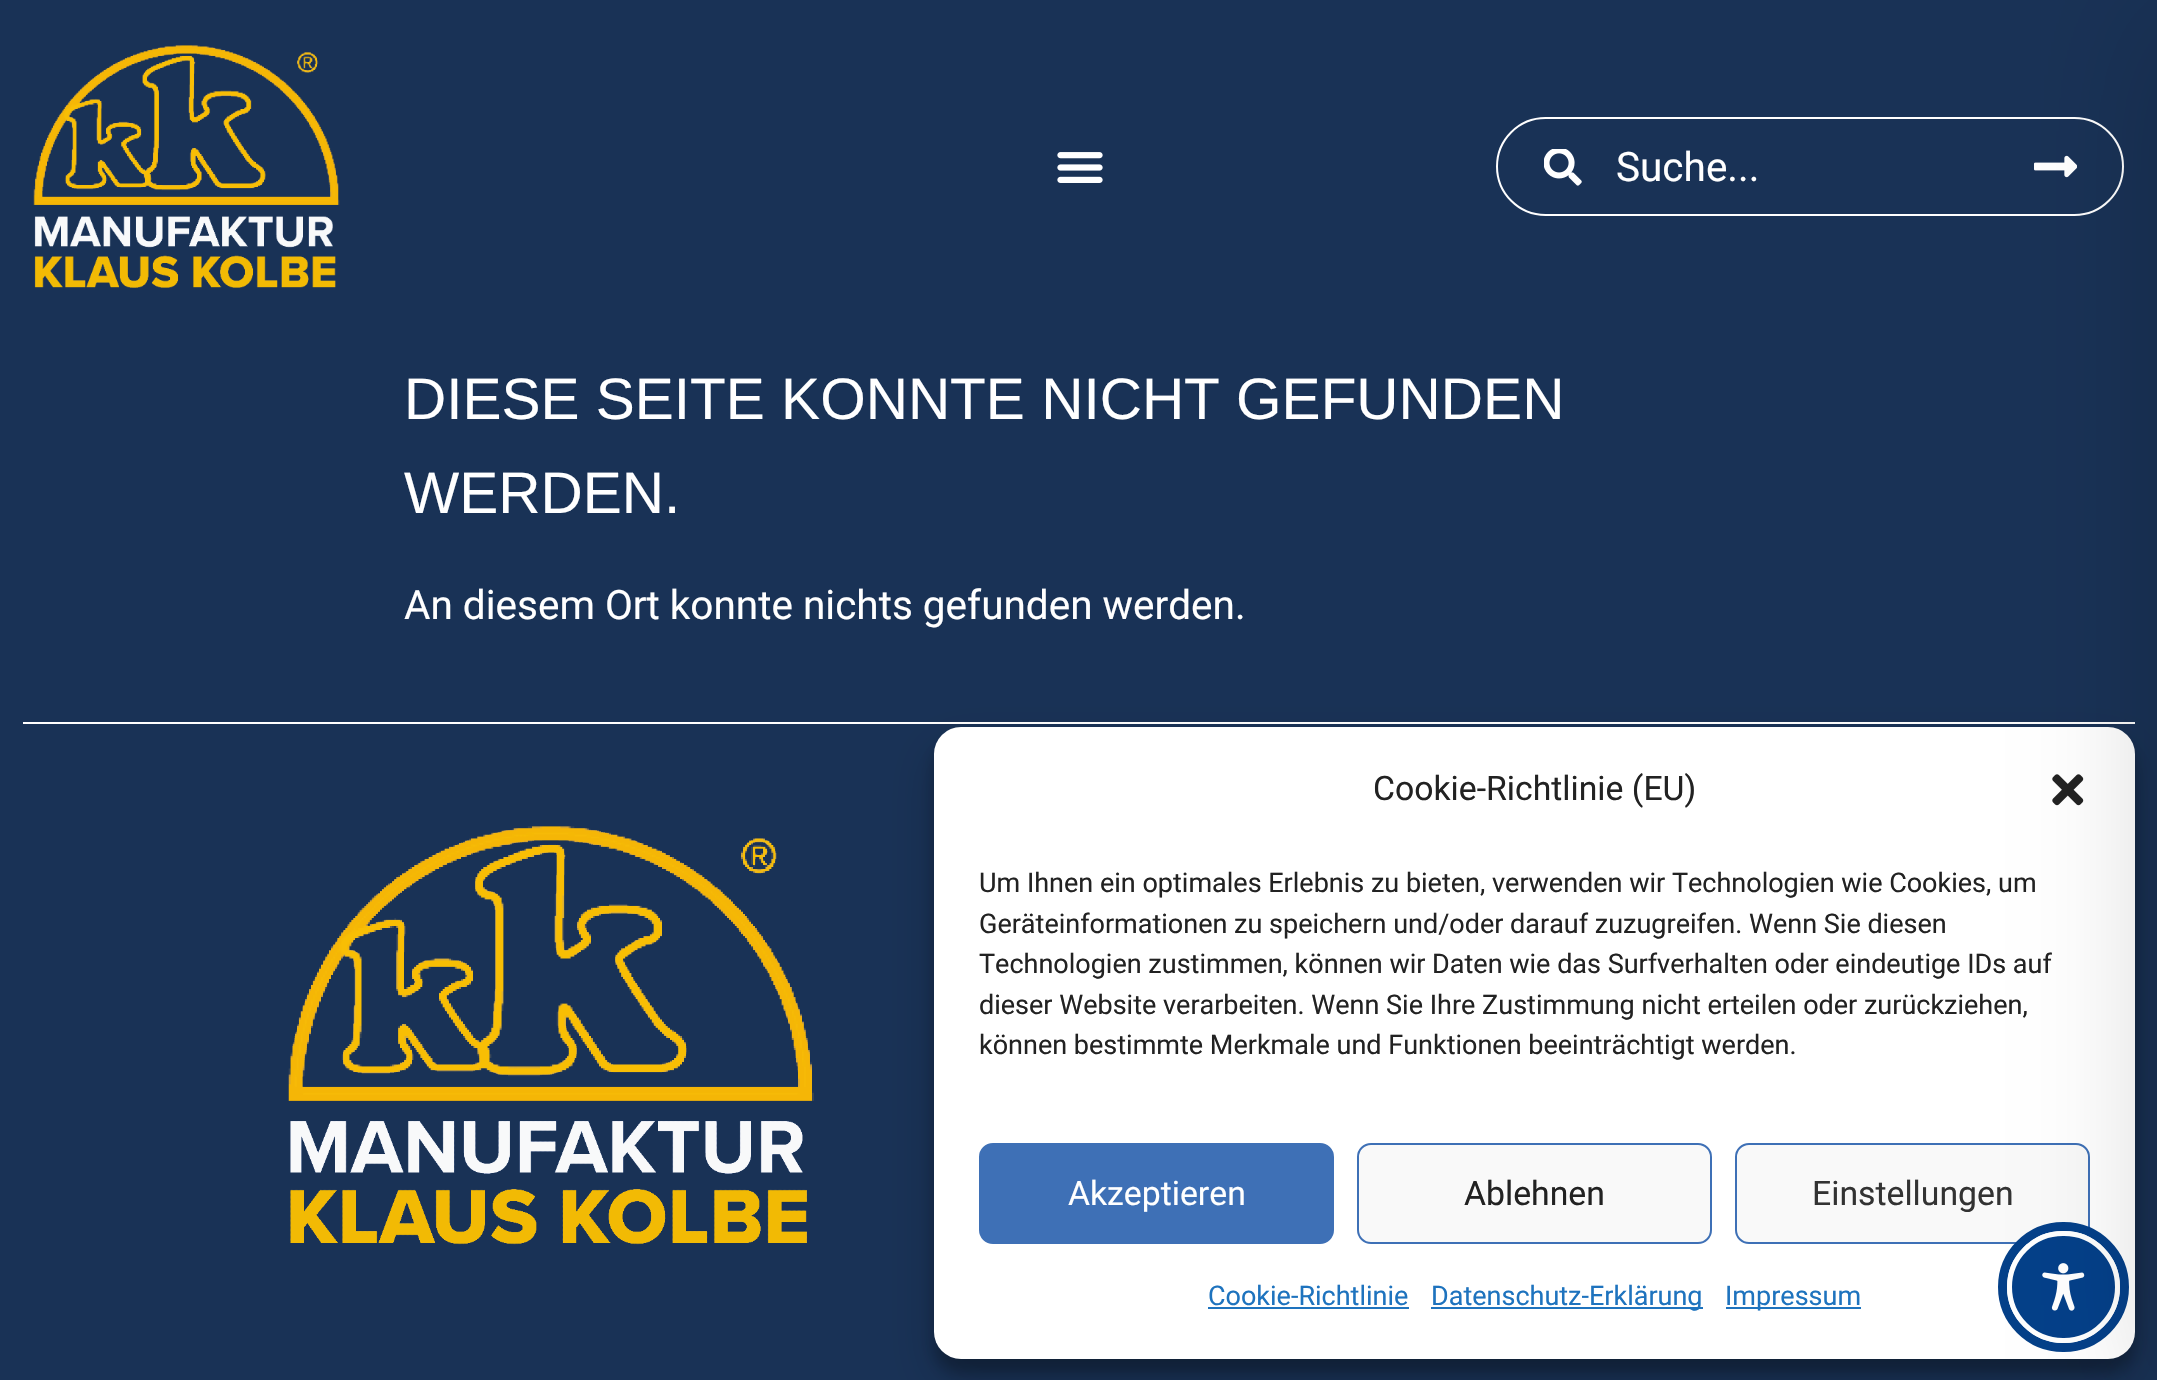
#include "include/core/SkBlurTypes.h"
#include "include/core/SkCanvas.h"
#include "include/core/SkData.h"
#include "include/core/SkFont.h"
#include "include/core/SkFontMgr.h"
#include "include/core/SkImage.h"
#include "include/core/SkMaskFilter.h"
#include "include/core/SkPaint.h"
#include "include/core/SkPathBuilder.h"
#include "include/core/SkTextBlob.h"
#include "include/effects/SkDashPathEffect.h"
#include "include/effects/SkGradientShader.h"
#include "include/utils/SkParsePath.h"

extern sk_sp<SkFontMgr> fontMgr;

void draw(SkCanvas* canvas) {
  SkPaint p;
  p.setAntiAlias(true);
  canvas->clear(SkColorSetRGB(25, 50, 86));
  canvas->drawImageRect(SkImages::DeferredFromEncodedData(SkData::MakeFromFileName("images/1.png")), SkRect::MakeLTRB(33, 45, 340, 288), SkSamplingOptions());
  canvas->drawImageRect(SkImages::DeferredFromEncodedData(SkData::MakeFromFileName("images/2.png")), SkRect::MakeLTRB(1057, 152, 1103, 183), SkSamplingOptions());
  p.setStyle(SkPaint::kStroke_Style);
  p.setStrokeWidth(2);
  p.setColor(SK_ColorWHITE);
  canvas->drawRoundRect(SkRect::MakeLTRB(1497, 118, 2123, 215), 48.5f, 48.5f, p);
  canvas->drawImageRect(SkImages::DeferredFromEncodedData(SkData::MakeFromFileName("images/3.png")), SkRect::MakeLTRB(1544, 149, 1582, 186), SkSamplingOptions());
  canvas->drawImageRect(SkImages::DeferredFromEncodedData(SkData::MakeFromFileName("images/4.png")), SkRect::MakeLTRB(2034, 155, 2077, 178), SkSamplingOptions());
  p.setStyle(SkPaint::kFill_Style);
  canvas->drawRect(SkRect::MakeLTRB(23, 722, 2135, 724), p);
  p.setColor(SkColorSetARGB(59, 0, 0, 0));
  p.setMaskFilter(SkMaskFilter::MakeBlur(kNormal_SkBlurStyle, 7));
  canvas->drawRoundRect(SkRect::MakeLTRB(934, 740, 2135, 1373), 27, 27, p);
  p.setMaskFilter(nullptr);
  p.setColor(SkColorSetARGB(48, 0, 0, 0));
  p.setMaskFilter(SkMaskFilter::MakeBlur(kNormal_SkBlurStyle, 22.5f));
  canvas->drawRoundRect(SkRect::MakeLTRB(934, 749, 2135, 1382), 27, 27, p);
  p.setMaskFilter(nullptr);
  p.setColor(SK_ColorWHITE);
  canvas->drawRoundRect(SkRect::MakeLTRB(934, 727, 2135, 1359), 27, 27, p);
  canvas->drawImageRect(SkImages::DeferredFromEncodedData(SkData::MakeFromFileName("images/6.png")), SkRect::MakeLTRB(2052, 774, 2084, 806), SkSamplingOptions());
  p.setColor(SkColorSetRGB(249, 249, 249));
  canvas->drawRoundRect(SkRect::MakeLTRB(1736, 1144, 2089, 1243), 13, 13, p);
  p.setStyle(SkPaint::kStroke_Style);
  p.setColor(SkColorSetRGB(62, 112, 182));
  canvas->drawRoundRect(SkRect::MakeLTRB(1736, 1144, 2089, 1243), 13, 13, p);
  p.setStrokeWidth(9);
  p.setColor(SkColorSetRGB(4, 64, 137));
  canvas->drawRoundRect(SkRect::MakeLTRB(2002.5f, 1226.5f, 2124.5f, 1347.5f), 60.5f, 60.5f, p);
  p.setStyle(SkPaint::kFill_Style);
  canvas->drawRoundRect(SkRect::MakeLTRB(2009.5f, 1233.5f, 2117.5f, 1340.5f), 53.5f, 53.5f, p);
  p.setStyle(SkPaint::kStroke_Style);
  p.setStrokeWidth(5);
  p.setColor(SK_ColorWHITE);
  canvas->drawRoundRect(SkRect::MakeLTRB(2009.5f, 1233.5f, 2117.5f, 1340.5f), 53.5f, 53.5f, p);
  canvas->drawImageRect(SkImages::DeferredFromEncodedData(SkData::MakeFromFileName("images/7.png")), SkRect::MakeLTRB(2042, 1263, 2085, 1311), SkSamplingOptions());
  p.setStyle(SkPaint::kFill_Style);
  p.setColor(SkColorSetARGB(51, 0, 0, 0));
  p.setMaskFilter(SkMaskFilter::MakeBlur(kNormal_SkBlurStyle, 67.5f));
  canvas->drawRect(SkRect::MakeLTRB(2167, 23, 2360, 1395), p);
  p.setMaskFilter(nullptr);
  canvas->drawImageRect(SkImages::DeferredFromEncodedData(SkData::MakeFromFileName("images/5.png")), SkRect::MakeLTRB(288, 826, 814, 1245), SkSamplingOptions());
  p.setColor(SkColorSetRGB(62, 112, 182));
  canvas->drawRoundRect(SkRect::MakeLTRB(980, 1144, 1333, 1243), 13, 13, p);
  p.setStyle(SkPaint::kStroke_Style);
  p.setStrokeWidth(2);
  canvas->drawRoundRect(SkRect::MakeLTRB(980, 1144, 1333, 1243), 13, 13, p);
  p.setStyle(SkPaint::kFill_Style);
  p.setColor(SkColorSetRGB(249, 249, 249));
  canvas->drawRoundRect(SkRect::MakeLTRB(1358, 1144, 1711, 1243), 13, 13, p);
  p.setStyle(SkPaint::kStroke_Style);
  p.setColor(SkColorSetRGB(62, 112, 182));
  canvas->drawRoundRect(SkRect::MakeLTRB(1358, 1144, 1711, 1243), 13, 13, p);
  p.setStyle(SkPaint::kFill_Style);
  p.setColor(SkColorSetRGB(30, 115, 190));
  canvas->drawRect(SkRect::MakeLTRB(1208, 1307, 1409, 1309), p);
  canvas->drawRect(SkRect::MakeLTRB(1431, 1307, 1703, 1309), p);
  canvas->drawRect(SkRect::MakeLTRB(1726, 1307, 1861, 1309), p);
  SkFont font1(fontMgr->matchFamilyStyle("Roboto", SkFontStyle::Normal()), 40.5f);
  font1.setSubpixel(true);
  p.setColor(SK_ColorWHITE);
  canvas->drawString("Suche...", 1616, 181, font1, p);
  SkFont font2(fontMgr->matchFamilyStyle("Liberation Sans", SkFontStyle::Normal()), 58.5f);
  font2.setSubpixel(true);
  canvas->drawString("DIESE SEITE KONNTE NICHT GEFUNDEN", 404, 419, font2, p);
  canvas->drawString("WERDEN.", 404, 513, font2, p);
  canvas->drawString("An diesem Ort konnte nichts gefunden werden.", 404, 619, font1, p);
  SkFont font3(fontMgr->matchFamilyStyle("Roboto", SkFontStyle::Normal()), 33.75f);
  font3.setSubpixel(true);
  p.setColor(SkColorSetRGB(34, 34, 34));
  canvas->drawString("Cookie-Richtlinie (EU)", 1373, 800, font3, p);
  SkFont font4(fontMgr->matchFamilyStyle("Roboto", SkFontStyle::Normal()), 27);
  font4.setSubpixel(true);
  canvas->drawString("Um Ihnen ein optimales Erlebnis zu bieten, verwenden wir Technologien wie Cookies, um", 979, 892, font4, p);
  canvas->drawString("Geräteinformationen zu speichern und/oder darauf zuzugreifen. Wenn Sie diesen", 979, 933, font4, p);
  canvas->drawString("Technologien zustimmen, können wir Daten wie das Surfverhalten oder eindeutige IDs auf", 979, 973, font4, p);
  canvas->drawString("dieser Website verarbeiten. Wenn Sie Ihre Zustimmung nicht erteilen oder zurückziehen,", 979, 1014, font4, p);
  canvas->drawString("können bestimmte Merkmale und Funktionen beeinträchtigt werden.", 979, 1054, font4, p);
  p.setColor(SK_ColorWHITE);
  canvas->drawString("Akzeptieren", 1068, 1205, font3, p);
  p.setColor(SkColorSetRGB(34, 34, 34));
  canvas->drawString("Ablehnen", 1464, 1205, font3, p);
  p.setColor(SkColorSetRGB(51, 51, 51));
  canvas->drawString("Einstellungen", 1812, 1205, font3, p);
  p.setColor(SkColorSetRGB(30, 115, 190));
  canvas->drawString("Cookie-Richtlinie", 1208, 1305, font4, p);
  canvas->drawString("Datenschutz-Erklärung", 1431, 1305, font4, p);
  canvas->drawString("Impressum", 1725, 1305, font4, p);
}
